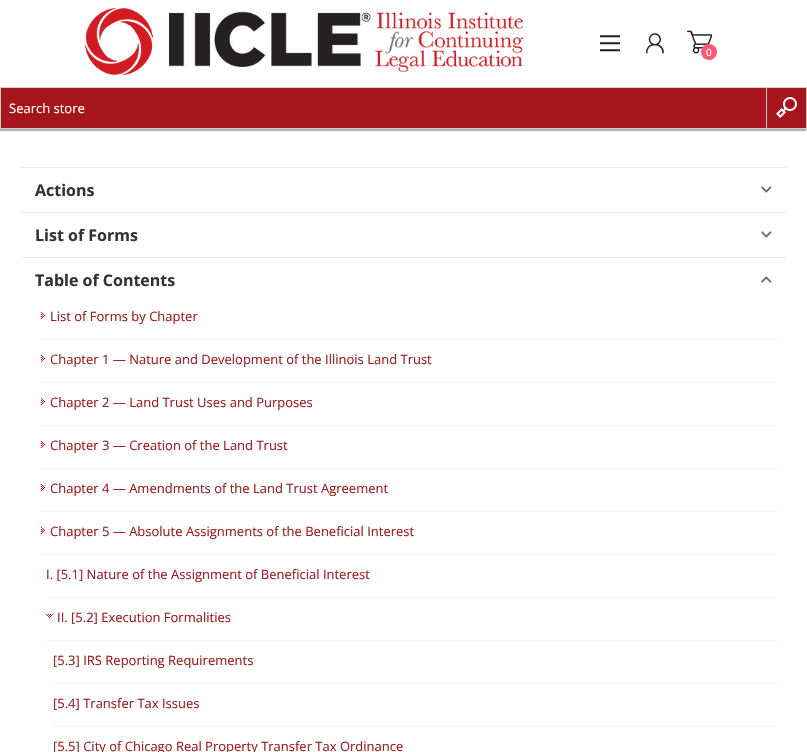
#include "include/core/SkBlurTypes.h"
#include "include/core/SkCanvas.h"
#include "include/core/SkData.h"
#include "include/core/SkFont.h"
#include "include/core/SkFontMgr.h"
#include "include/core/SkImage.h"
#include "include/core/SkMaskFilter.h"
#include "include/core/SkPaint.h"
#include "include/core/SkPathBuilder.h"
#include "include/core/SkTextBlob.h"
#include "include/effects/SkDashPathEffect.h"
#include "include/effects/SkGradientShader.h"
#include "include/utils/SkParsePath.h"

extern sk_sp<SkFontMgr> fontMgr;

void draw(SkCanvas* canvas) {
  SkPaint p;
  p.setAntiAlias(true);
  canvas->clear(SK_ColorWHITE);
  canvas->drawImageRect(SkImages::DeferredFromEncodedData(SkData::MakeFromFileName("images/1.png")), SkRect::MakeLTRB(600, 35, 620, 52), SkSamplingOptions());
  canvas->drawImageRect(SkImages::DeferredFromEncodedData(SkData::MakeFromFileName("images/2.png")), SkRect::MakeLTRB(645, 33, 664, 54), SkSamplingOptions());
  canvas->drawImageRect(SkImages::DeferredFromEncodedData(SkData::MakeFromFileName("images/3.png")), SkRect::MakeLTRB(687, 30, 713, 54), SkSamplingOptions());
  p.setColor(SkColorSetRGB(255, 88, 116));
  canvas->drawCircle(709, 52, 8, p);
  canvas->drawImageRect(SkImages::DeferredFromEncodedData(SkData::MakeFromFileName("images/4.png")), SkRect::MakeLTRB(85, 8, 523, 75), SkSamplingOptions());
  p.setColor(SkColorSetARGB(77, 0, 0, 0));
  p.setMaskFilter(SkMaskFilter::MakeBlur(kNormal_SkBlurStyle, 0.5f));
  canvas->drawRect(SkRect::MakeLTRB(-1, 89, 806, 131), p);
  p.setMaskFilter(nullptr);
  p.setColor(SkColorSetRGB(166, 21, 28));
  canvas->drawRect(SkRect::MakeLTRB(0.5f, 87.5f, 806.5f, 128.5f), p);
  p.setStyle(SkPaint::kStroke_Style);
  p.setStrokeWidth(1);
  p.setColor(SkColorSetRGB(204, 204, 204));
  canvas->drawRect(SkRect::MakeLTRB(0.5f, 87.5f, 806.5f, 128.5f), p);
  canvas->drawImageRect(SkImages::DeferredFromEncodedData(SkData::MakeFromFileName("images/5.png")), SkRect::MakeLTRB(776, 97, 797, 118), SkSamplingOptions());
  p.setStyle(SkPaint::kFill_Style);
  canvas->drawRect(SkRect::MakeLTRB(766, 88, 767, 128), p);
  p.setColor(SkColorSetRGB(235, 235, 235));
  canvas->drawRect(SkRect::MakeLTRB(20, 167, 787, 168), p);
  canvas->drawImageRect(SkImages::DeferredFromEncodedData(SkData::MakeFromFileName("images/6.png")), SkRect::MakeLTRB(761, 186, 772, 193), SkSamplingOptions());
  canvas->drawRect(SkRect::MakeLTRB(20, 212, 787, 213), p);
  canvas->drawImageRect(SkImages::DeferredFromEncodedData(SkData::MakeFromFileName("images/6.png")), SkRect::MakeLTRB(761, 231, 772, 238), SkSamplingOptions());
  canvas->drawRect(SkRect::MakeLTRB(20, 257, 787, 258), p);
  canvas->drawImageRect(SkImages::DeferredFromEncodedData(SkData::MakeFromFileName("images/7.png")), SkRect::MakeLTRB(761, 276, 772, 283), SkSamplingOptions());
  p.setColor(SkColorSetRGB(244, 244, 244));
  canvas->drawRect(SkRect::MakeLTRB(40, 339, 777, 340), p);
  canvas->drawImageRect(SkImages::DeferredFromEncodedData(SkData::MakeFromFileName("images/8.png")), SkRect::MakeLTRB(41, 312, 45, 319), SkSamplingOptions());
  canvas->drawRect(SkRect::MakeLTRB(40, 382, 777, 383), p);
  canvas->drawImageRect(SkImages::DeferredFromEncodedData(SkData::MakeFromFileName("images/8.png")), SkRect::MakeLTRB(41, 355, 45, 362), SkSamplingOptions());
  canvas->drawRect(SkRect::MakeLTRB(40, 425, 777, 426), p);
  canvas->drawImageRect(SkImages::DeferredFromEncodedData(SkData::MakeFromFileName("images/8.png")), SkRect::MakeLTRB(41, 398, 45, 405), SkSamplingOptions());
  canvas->drawRect(SkRect::MakeLTRB(40, 468, 777, 469), p);
  canvas->drawImageRect(SkImages::DeferredFromEncodedData(SkData::MakeFromFileName("images/8.png")), SkRect::MakeLTRB(41, 441, 45, 448), SkSamplingOptions());
  canvas->drawRect(SkRect::MakeLTRB(40, 511, 777, 512), p);
  canvas->drawImageRect(SkImages::DeferredFromEncodedData(SkData::MakeFromFileName("images/8.png")), SkRect::MakeLTRB(41, 484, 45, 491), SkSamplingOptions());
  canvas->drawRect(SkRect::MakeLTRB(40, 554, 777, 555), p);
  canvas->drawImageRect(SkImages::DeferredFromEncodedData(SkData::MakeFromFileName("images/8.png")), SkRect::MakeLTRB(41, 527, 45, 534), SkSamplingOptions());
  canvas->drawRect(SkRect::MakeLTRB(47, 597, 777, 598), p);
  canvas->drawRect(SkRect::MakeLTRB(47, 640, 777, 641), p);
  canvas->drawImageRect(SkImages::DeferredFromEncodedData(SkData::MakeFromFileName("images/9.png")), SkRect::MakeLTRB(46, 614, 53, 618), SkSamplingOptions());
  canvas->drawRect(SkRect::MakeLTRB(54, 683, 777, 684), p);
  canvas->drawRect(SkRect::MakeLTRB(54, 726, 777, 727), p);
  SkFont font1(fontMgr->matchFamilyStyle("Open Sans", SkFontStyle::Normal()), 10);
  font1.setSubpixel(true);
  p.setColor(SK_ColorWHITE);
  canvas->drawString("0", 706, 56, font1, p);
  SkFont font2(fontMgr->matchFamilyStyle("Open Sans", SkFontStyle::Normal()), 13);
  font2.setSubpixel(true);
  canvas->drawString("Search store", 9, 113, font2, p);
  SkFont font3(fontMgr->matchFamilyStyle("Open Sans", SkFontStyle::Bold()), 16);
  font3.setSubpixel(true);
  p.setColor(SkColorSetRGB(51, 51, 51));
  canvas->drawString("Actions", 35, 196, font3, p);
  canvas->drawString("List of Forms", 35, 241, font3, p);
  canvas->drawString("Table of Contents", 35, 286, font3, p);
  p.setColor(SkColorSetRGB(158, 29, 34));
  canvas->drawString("List of Forms by Chapter", 50, 321, font2, p);
  canvas->drawString("Chapter 1 — Nature and Development of the Illinois Land Trust", 50, 364, font2, p);
  canvas->drawString("Chapter 2 — Land Trust Uses and Purposes", 50, 407, font2, p);
  canvas->drawString("Chapter 3 — Creation of the Land Trust", 50, 450, font2, p);
  canvas->drawString("Chapter 4 — Amendments of the Land Trust Agreement", 50, 493, font2, p);
  canvas->drawString("Chapter 5 — Absolute Assignments of the Beneficial Interest", 50, 536, font2, p);
  canvas->drawString("I. [5.1] Nature of the Assignment of Beneficial Interest", 46, 579, font2, p);
  canvas->drawString("II. [5.2] Execution Formalities", 57, 622, font2, p);
  canvas->drawString("[5.3] IRS Reporting Requirements", 53, 665, font2, p);
  canvas->drawString("[5.4] Transfer Tax Issues", 53, 708, font2, p);
  canvas->drawString("[5.5] City of Chicago Real Property Transfer Tax Ordinance", 53, 751, font2, p);
}
